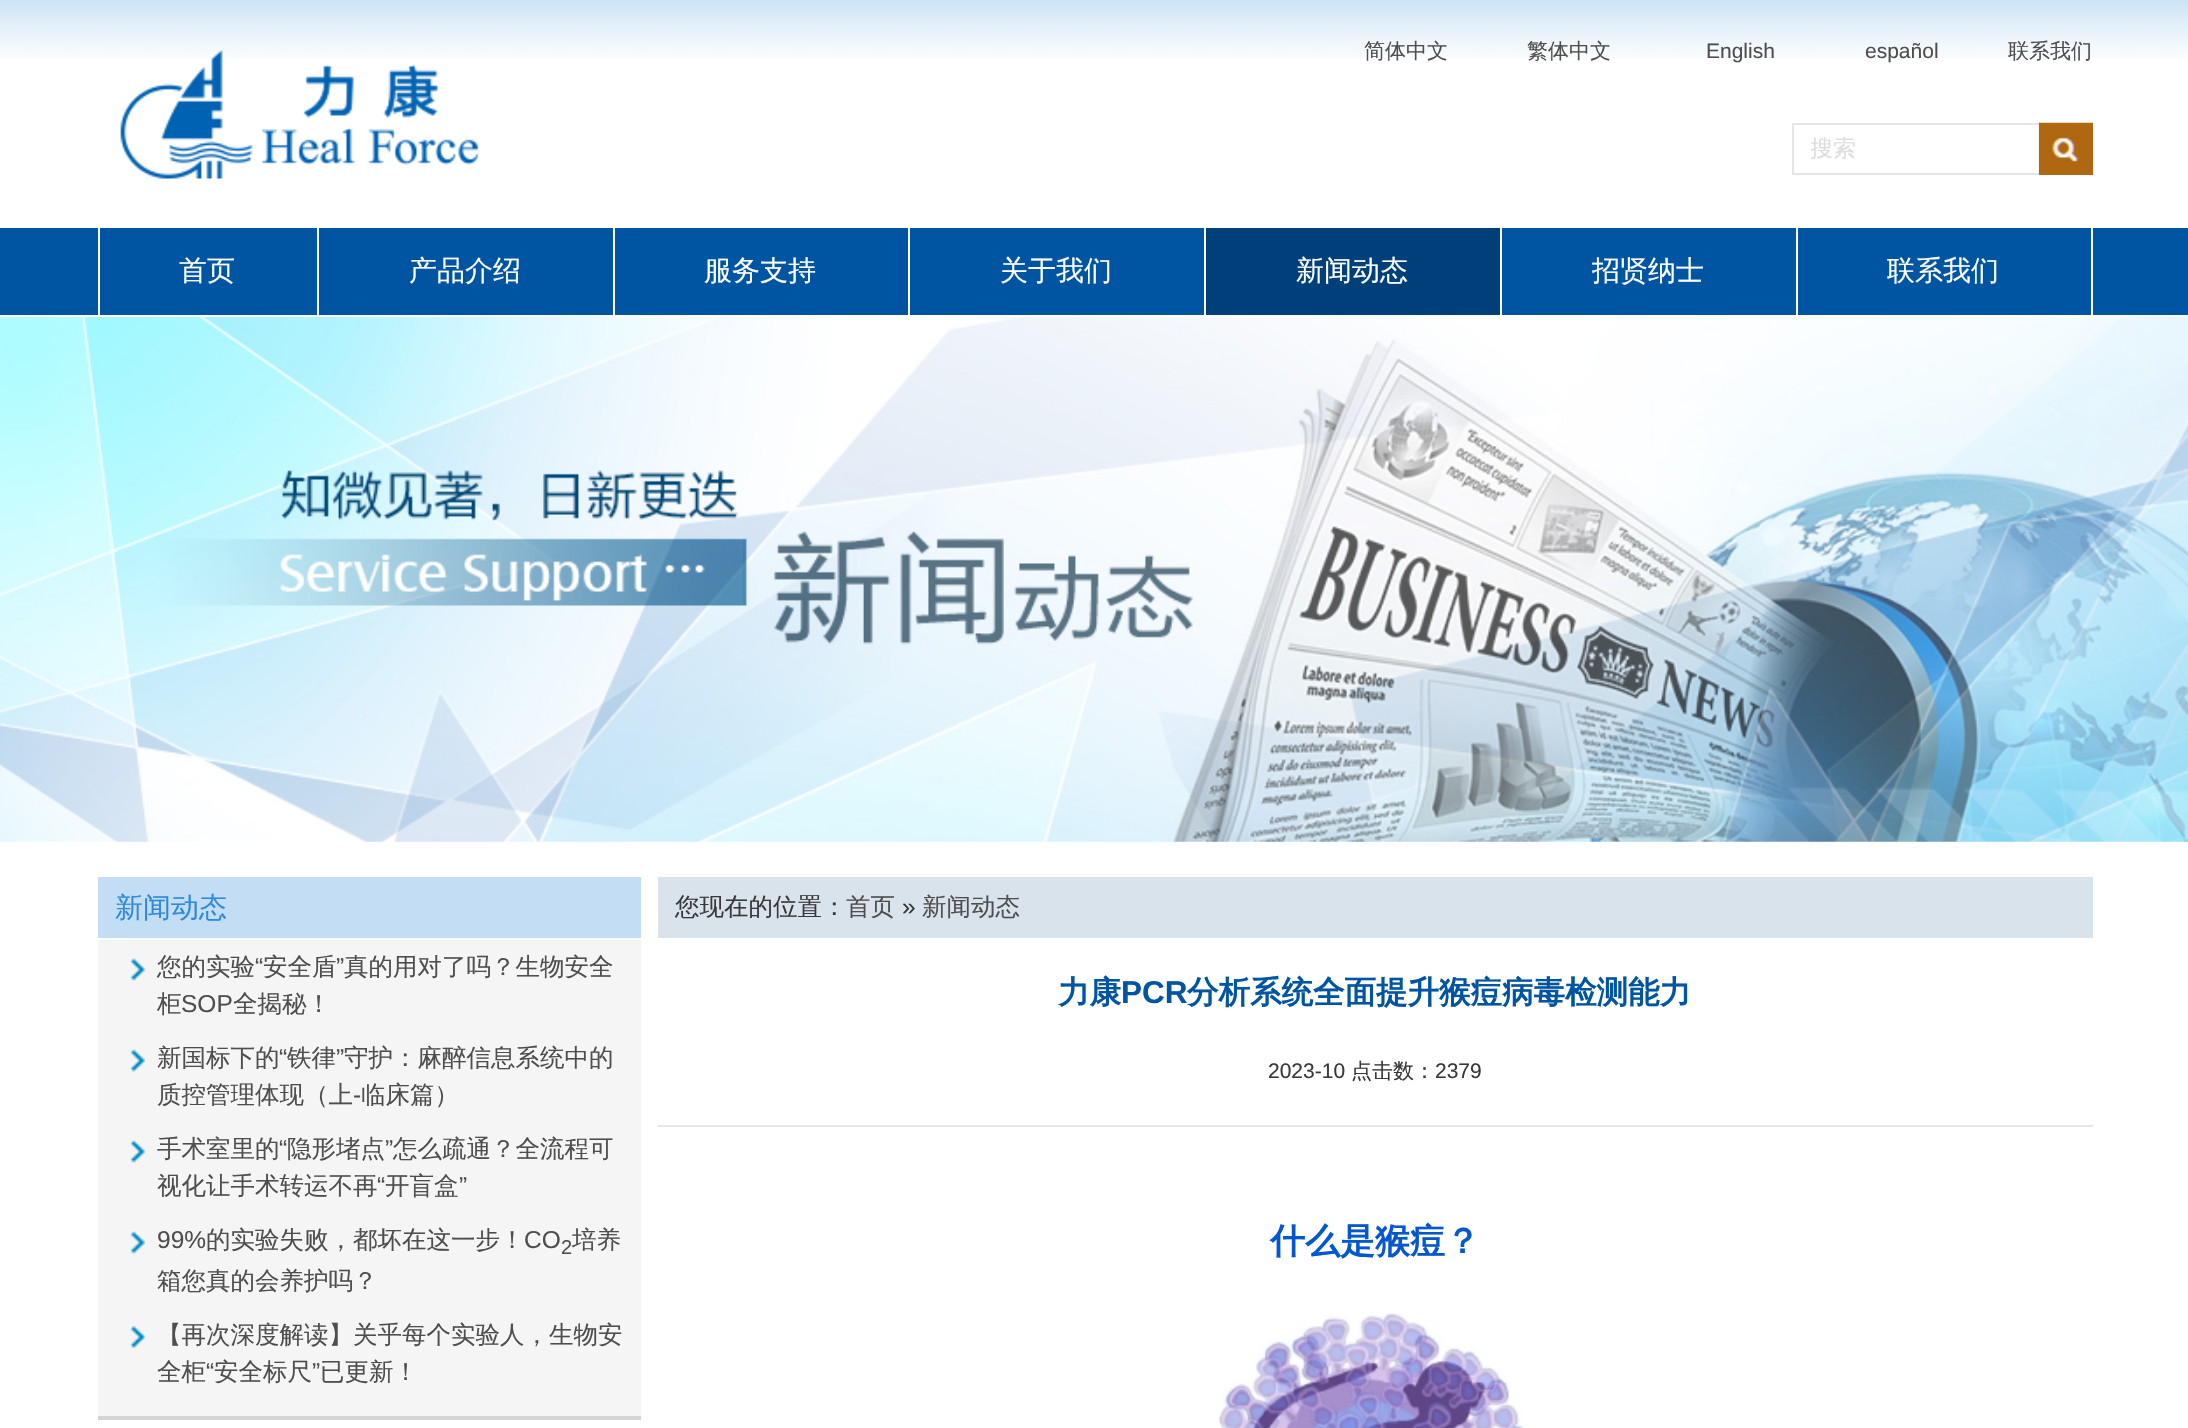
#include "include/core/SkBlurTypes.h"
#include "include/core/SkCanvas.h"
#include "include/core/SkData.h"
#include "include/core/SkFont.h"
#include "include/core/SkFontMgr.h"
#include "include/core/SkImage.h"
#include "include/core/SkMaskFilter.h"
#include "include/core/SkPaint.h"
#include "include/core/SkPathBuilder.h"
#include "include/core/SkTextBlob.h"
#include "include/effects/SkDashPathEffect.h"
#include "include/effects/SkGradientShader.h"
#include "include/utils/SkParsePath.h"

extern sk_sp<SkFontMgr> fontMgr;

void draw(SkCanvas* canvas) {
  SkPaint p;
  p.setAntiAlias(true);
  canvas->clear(SK_ColorWHITE);
  canvas->drawImageRect(SkImages::DeferredFromEncodedData(SkData::MakeFromFileName("images/1.png")), SkRect::MakeLTRB(0, 0, 2188, 58), SkSamplingOptions());
  canvas->drawImageRect(SkImages::DeferredFromEncodedData(SkData::MakeFromFileName("images/2.png")), SkRect::MakeLTRB(120, 50, 479, 179), SkSamplingOptions());
  p.setColor(SkColorSetRGB(229, 229, 229));
  canvas->drawRect(SkRect::MakeLTRB(1792, 123, 2039, 125), p);
  canvas->drawRect(SkRect::MakeLTRB(1792, 173, 2039, 175), p);
  canvas->drawRect(SkRect::MakeLTRB(1792, 123, 1794, 175), p);
  canvas->drawImageRect(SkImages::DeferredFromEncodedData(SkData::MakeFromFileName("images/3.png")), SkRect::MakeLTRB(2038, 122, 2093, 175), SkSamplingOptions());
  p.setColor(SkColorSetRGB(0, 85, 162));
  canvas->drawRect(SkRect::MakeLTRB(0, 228, 2188, 315), p);
  p.setColor(SK_ColorWHITE);
  canvas->drawRect(SkRect::MakeLTRB(2091, 228, 2093, 315), p);
  canvas->drawRect(SkRect::MakeLTRB(98, 228, 100, 315), p);
  canvas->drawRect(SkRect::MakeLTRB(317, 228, 319, 315), p);
  canvas->drawRect(SkRect::MakeLTRB(613, 228, 615, 315), p);
  canvas->drawRect(SkRect::MakeLTRB(908, 228, 910, 315), p);
  p.setColor(SkColorSetRGB(0, 64, 122));
  canvas->drawRect(SkRect::MakeLTRB(1206, 228, 1500, 315), p);
  p.setColor(SK_ColorWHITE);
  canvas->drawRect(SkRect::MakeLTRB(1204, 228, 1206, 315), p);
  canvas->drawRect(SkRect::MakeLTRB(1500, 228, 1502, 315), p);
  canvas->drawRect(SkRect::MakeLTRB(1796, 228, 1798, 315), p);
  canvas->drawImageRect(SkImages::DeferredFromEncodedData(SkData::MakeFromFileName("images/4.png")), SkRect::MakeLTRB(0, 317, 2188, 842), SkSamplingOptions());
  p.setColor(SkColorSetRGB(195, 221, 244));
  canvas->drawRect(SkRect::MakeLTRB(98, 877, 641, 938), p);
  p.setColor(SkColorSetRGB(245, 245, 245));
  canvas->drawRect(SkRect::MakeLTRB(98, 940, 641, 1416), p);
  p.setColor(SkColorSetRGB(212, 212, 212));
  canvas->drawRect(SkRect::MakeLTRB(98, 1416, 641, 1420), p);
  canvas->drawImageRect(SkImages::DeferredFromEncodedData(SkData::MakeFromFileName("images/5.png")), SkRect::MakeLTRB(130, 958, 146, 981), SkSamplingOptions());
  canvas->drawImageRect(SkImages::DeferredFromEncodedData(SkData::MakeFromFileName("images/5.png")), SkRect::MakeLTRB(130, 1049, 146, 1072), SkSamplingOptions());
  canvas->drawImageRect(SkImages::DeferredFromEncodedData(SkData::MakeFromFileName("images/5.png")), SkRect::MakeLTRB(130, 1140, 146, 1163), SkSamplingOptions());
  canvas->drawImageRect(SkImages::DeferredFromEncodedData(SkData::MakeFromFileName("images/5.png")), SkRect::MakeLTRB(130, 1231, 146, 1254), SkSamplingOptions());
  canvas->drawImageRect(SkImages::DeferredFromEncodedData(SkData::MakeFromFileName("images/6.png")), SkRect::MakeLTRB(130, 1326, 146, 1348), SkSamplingOptions());
  p.setColor(SkColorSetRGB(217, 227, 235));
  canvas->drawRect(SkRect::MakeLTRB(658, 877, 2093, 938), p);
  p.setColor(SkColorSetRGB(230, 230, 230));
  canvas->drawRect(SkRect::MakeLTRB(658, 1125, 2093, 1127), p);
  canvas->drawImageRect(SkImages::DeferredFromEncodedData(SkData::MakeFromFileName("images/7.png")), SkRect::MakeLTRB(1218, 1312, 1524, 1428), SkSamplingOptions());
  SkFont font1(fontMgr->matchFamilyStyle("WenQuanYi Zen Hei", SkFontStyle(500, SkFontStyle::kNormal_Width, SkFontStyle::kUpright_Slant)), 21);
  font1.setSubpixel(true);
  p.setColor(SkColorSetRGB(78, 78, 78));
  canvas->drawString("简体中文", 1364, 58, font1, p);
  canvas->drawString("繁体中文", 1527, 58, font1, p);
  SkFont font2(fontMgr->matchFamilyStyle("Liberation Sans", SkFontStyle::Normal()), 21);
  font2.setSubpixel(true);
  canvas->drawString("English", 1706, 58, font2, p);
  canvas->drawString("español", 1865, 58, font2, p);
  canvas->drawString("联系我们", 2008, 58, font1, p);
  canvas->save();
  canvas->clipRect(SkRect::MakeLTRB(1811, 124, 2021, 173));
  SkFont font3(fontMgr->matchFamilyStyle("WenQuanYi Zen Hei", SkFontStyle(500, SkFontStyle::kNormal_Width, SkFontStyle::kUpright_Slant)), 23);
  font3.setSubpixel(true);
  p.setColor(SkColorSetRGB(221, 221, 221));
  canvas->drawString("搜索", 1810, 156, font3, p);
  canvas->restore();
  SkFont font4(fontMgr->matchFamilyStyle("WenQuanYi Zen Hei", SkFontStyle(500, SkFontStyle::kNormal_Width, SkFontStyle::kUpright_Slant)), 28);
  font4.setSubpixel(true);
  p.setColor(SK_ColorWHITE);
  canvas->drawString("首页", 179, 280, font4, p);
  canvas->drawString("产品介绍", 409, 280, font4, p);
  canvas->drawString("服务支持", 704, 280, font4, p);
  canvas->drawString("关于我们", 1000, 280, font4, p);
  canvas->drawString("新闻动态", 1296, 280, font4, p);
  canvas->drawString("招贤纳士", 1592, 280, font4, p);
  canvas->drawString("联系我们", 1887, 280, font4, p);
  p.setColor(SkColorSetRGB(46, 138, 220));
  canvas->drawString("新闻动态", 115, 917, font4, p);
  SkFont font5(fontMgr->matchFamilyStyle("WenQuanYi Zen Hei", SkFontStyle(500, SkFontStyle::kNormal_Width, SkFontStyle::kUpright_Slant)), 24.5f);
  font5.setSubpixel(true);
  p.setColor(SkColorSetRGB(78, 78, 78));
  canvas->drawString("您的实验", 157, 975, font5, p);
  SkFont font6(fontMgr->matchFamilyStyle("Liberation Sans", SkFontStyle::Normal()), 24.5f);
  font6.setSubpixel(true);
  canvas->drawString("“", 255, 975, font6, p);
  canvas->drawString("安全盾", 263, 975, font5, p);
  canvas->drawString("”", 336, 975, font6, p);
  canvas->drawString("真的用对了吗？生物安全", 344, 975, font5, p);
  canvas->drawString("柜", 157, 1012, font5, p);
  canvas->drawString("SOP", 181, 1012, font6, p);
  canvas->drawString("全揭秘！", 233, 1012, font5, p);
  canvas->drawString("新国标下的", 157, 1066, font5, p);
  canvas->drawString("“", 279, 1066, font6, p);
  canvas->drawString("铁律", 287, 1066, font5, p);
  canvas->drawString("”", 336, 1066, font6, p);
  canvas->drawString("守护：麻醉信息系统中的", 344, 1066, font5, p);
  canvas->drawString("质控管理体现（上", 157, 1103, font5, p);
  canvas->drawString("-", 353, 1103, font6, p);
  canvas->drawString("临床篇）", 361, 1103, font5, p);
  canvas->drawString("手术室里的", 157, 1157, font5, p);
  canvas->drawString("“", 279, 1157, font6, p);
  canvas->drawString("隐形堵点", 287, 1157, font5, p);
  canvas->drawString("”", 385, 1157, font6, p);
  canvas->drawString("怎么疏通？全流程可", 393, 1157, font5, p);
  canvas->drawString("视化让手术转运不再", 157, 1194, font5, p);
  canvas->drawString("“", 377, 1194, font6, p);
  canvas->drawString("开盲盒", 385, 1194, font5, p);
  canvas->drawString("”", 459, 1194, font6, p);
  canvas->drawString("99%", 157, 1248, font6, p);
  canvas->drawString("的实验失败，都坏在这一步！", 206, 1248, font5, p);
  canvas->drawString("CO", 524, 1248, font6, p);
  SkFont font7(fontMgr->matchFamilyStyle("Liberation Sans", SkFontStyle::Normal()), 20);
  font7.setSubpixel(true);
  canvas->drawString("2", 561, 1254, font7, p);
  canvas->drawString("培养", 572, 1248, font5, p);
  canvas->drawString("箱您真的会养护吗？", 157, 1289, font5, p);
  canvas->drawString("【再次深度解读】关乎每个实验人，生物安", 157, 1343, font5, p);
  canvas->drawString("全柜", 157, 1380, font5, p);
  canvas->drawString("“", 206, 1380, font6, p);
  canvas->drawString("安全标尺", 214, 1380, font5, p);
  canvas->drawString("”", 312, 1380, font6, p);
  canvas->drawString("已更新！", 320, 1380, font5, p);
  p.setColor(SkColorSetRGB(56, 56, 56));
  canvas->drawString("您现在的位置：", 675, 915, font5, p);
  p.setColor(SkColorSetRGB(78, 78, 78));
  canvas->drawString("首页", 846, 915, font5, p);
  p.setColor(SkColorSetRGB(56, 56, 56));
  canvas->drawString("»", 902, 915, font6, p);
  p.setColor(SkColorSetRGB(78, 78, 78));
  canvas->drawString("新闻动态", 922, 915, font5, p);
  SkFont font8(fontMgr->matchFamilyStyle("WenQuanYi Zen Hei", SkFontStyle::Bold()), 31.5f);
  font8.setSubpixel(true);
  p.setColor(SkColorSetRGB(0, 85, 162));
  canvas->drawString("力康", 1058, 1003, font8, p);
  SkFont font9(fontMgr->matchFamilyStyle("Liberation Sans", SkFontStyle::Bold()), 31.5f);
  font9.setSubpixel(true);
  canvas->drawString("PCR", 1121, 1003, font9, p);
  canvas->drawString("分析系统全面提升猴痘病毒检测能力", 1187, 1003, font8, p);
  p.setColor(SkColorSetRGB(56, 56, 56));
  canvas->drawString("2023-10", 1268, 1078, font2, p);
  canvas->drawString("点击数：", 1351, 1078, font1, p);
  canvas->drawString("2379", 1435, 1078, font2, p);
  SkFont font10(fontMgr->matchFamilyStyle("WenQuanYi Zen Hei", SkFontStyle::Bold()), 35);
  font10.setSubpixel(true);
  p.setColor(SkColorSetRGB(4, 87, 205));
  canvas->drawString("什么是猴痘？", 1270, 1253, font10, p);
}
